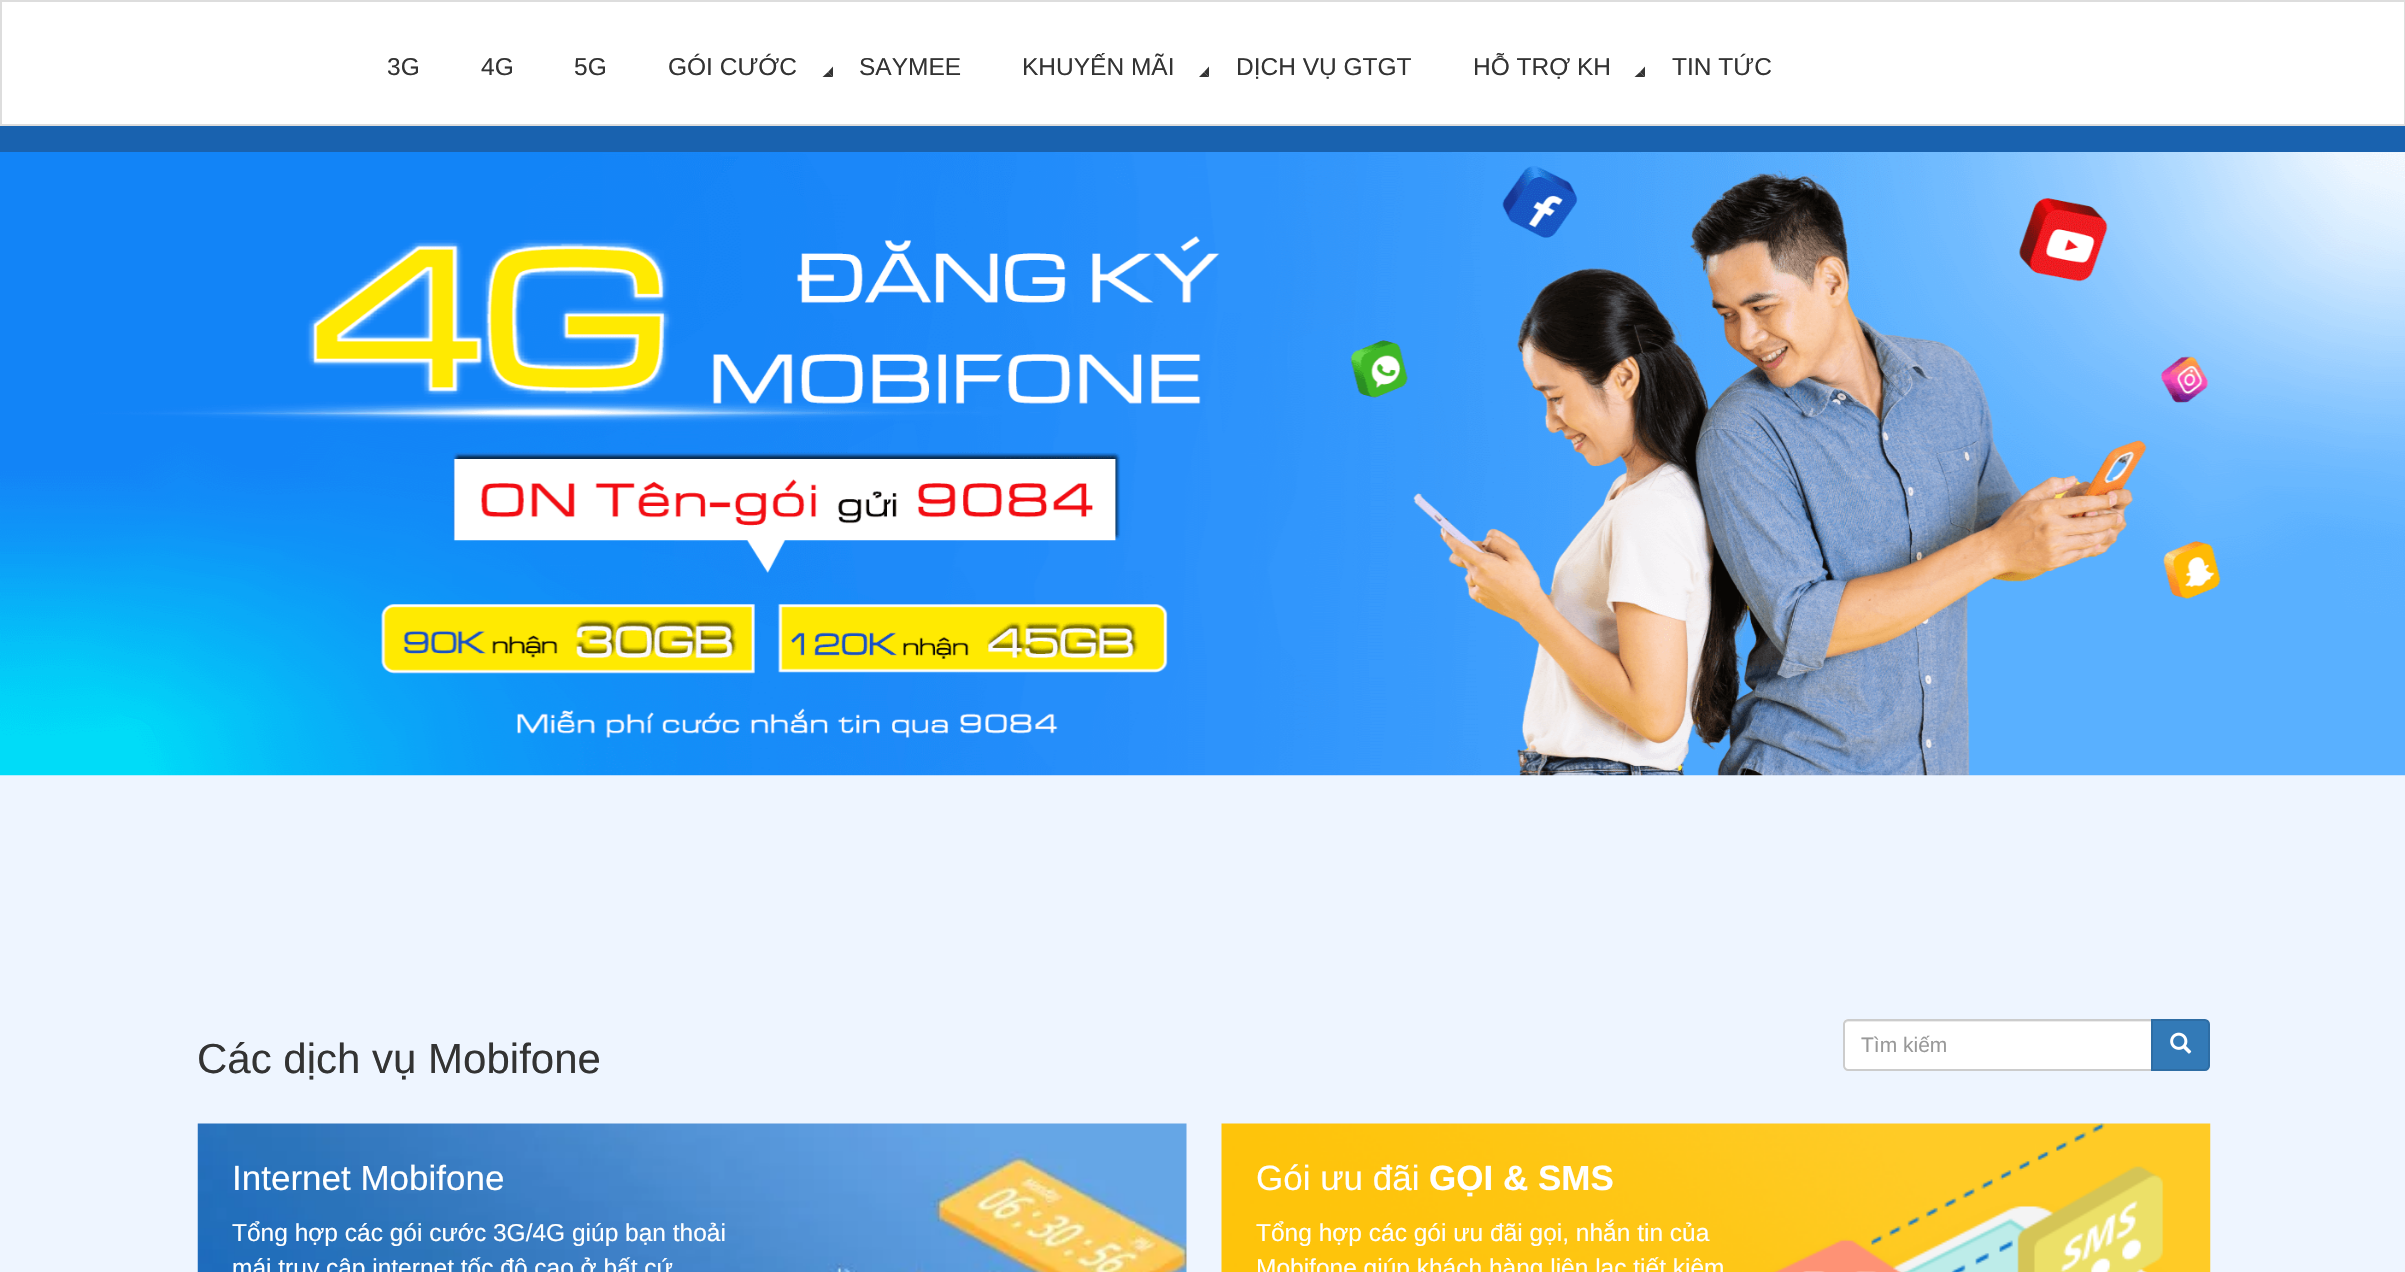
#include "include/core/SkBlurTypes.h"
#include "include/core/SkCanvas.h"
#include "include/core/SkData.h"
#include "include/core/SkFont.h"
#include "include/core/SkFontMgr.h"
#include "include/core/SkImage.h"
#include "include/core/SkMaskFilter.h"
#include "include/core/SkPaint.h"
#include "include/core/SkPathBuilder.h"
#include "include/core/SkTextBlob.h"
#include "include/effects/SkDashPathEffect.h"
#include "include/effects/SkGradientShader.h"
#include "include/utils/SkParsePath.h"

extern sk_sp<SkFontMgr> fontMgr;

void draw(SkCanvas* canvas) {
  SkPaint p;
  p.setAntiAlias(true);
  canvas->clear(SkColorSetRGB(238, 245, 255));
  p.setColor(SK_ColorWHITE);
  canvas->drawRect(SkRect::MakeLTRB(1, 1, 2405, 125), p);
  p.setStyle(SkPaint::kStroke_Style);
  p.setStrokeWidth(2);
  p.setColor(SkColorSetRGB(221, 221, 221));
  canvas->drawRect(SkRect::MakeLTRB(1, 1, 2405, 125), p);
  p.setStyle(SkPaint::kFill_Style);
  p.setColor(SkColorSetRGB(51, 51, 51));
  canvas->drawPath(SkPathBuilder().moveTo(833, 66.5f).lineTo(833, 77).lineTo(828, 72).close().detach(), p);
  canvas->drawPath(SkPathBuilder().moveTo(833, 77).lineTo(822.5f, 77).lineTo(828, 72).close().detach(), p);
  canvas->drawPath(SkPathBuilder().moveTo(1209, 66.5f).lineTo(1209, 77).lineTo(1204, 72).close().detach(), p);
  canvas->drawPath(SkPathBuilder().moveTo(1209, 77).lineTo(1199, 77).lineTo(1204, 72).close().detach(), p);
  canvas->drawPath(SkPathBuilder().moveTo(1645, 66.5f).lineTo(1645, 77).lineTo(1640, 72).close().detach(), p);
  canvas->drawPath(SkPathBuilder().moveTo(1645, 77).lineTo(1634.5f, 77).lineTo(1640, 72).close().detach(), p);
  p.setColor(SkColorSetRGB(25, 98, 175));
  canvas->drawRect(SkRect::MakeLTRB(0, 126, 2405, 152), p);
  canvas->drawImageRect(SkImages::DeferredFromEncodedData(SkData::MakeFromFileName("images/1.png")), SkRect::MakeLTRB(0, 152, 2405, 776), SkSamplingOptions());
  p.setColor(SK_ColorWHITE);
  canvas->drawPath(SkPathBuilder().moveTo(1848, 1019).lineTo(2153, 1019).lineTo(2153, 1071).lineTo(1848, 1071).cubicTo(1845, 1071, 1843, 1069, 1843, 1066).lineTo(1843, 1024).cubicTo(1843, 1021, 1845, 1019, 1848, 1019).close().detach(), p);
  p.setColor(SkColorSetRGB(236, 236, 236));
  canvas->drawPath(SkPathBuilder().moveTo(1848, 1022).lineTo(2151, 1022).lineTo(2151, 1020).lineTo(1849, 1020).cubicTo(1847, 1020, 1845, 1022, 1845, 1023).close().detach(), p);
  p.setStyle(SkPaint::kStroke_Style);
  p.setColor(SkColorSetRGB(204, 204, 204));
  canvas->drawPath(SkPathBuilder().moveTo(1848, 1020).lineTo(2152, 1020).lineTo(2152, 1070).lineTo(1848, 1070).cubicTo(1846, 1070, 1844, 1068, 1844, 1066).lineTo(1844, 1024).cubicTo(1844, 1022, 1846, 1020, 1848, 1020).close().detach(), p);
  p.setStyle(SkPaint::kFill_Style);
  p.setColor(SkColorSetRGB(51, 122, 183));
  canvas->drawPath(SkPathBuilder().moveTo(2152, 1020).lineTo(2205, 1020).cubicTo(2207, 1020, 2209, 1022, 2209, 1024).lineTo(2209, 1066).cubicTo(2209, 1068, 2207, 1070, 2205, 1070).lineTo(2152, 1070).close().detach(), p);
  p.setStyle(SkPaint::kStroke_Style);
  p.setColor(SkColorSetRGB(46, 109, 164));
  canvas->drawPath(SkPathBuilder().moveTo(2152, 1020).lineTo(2205, 1020).cubicTo(2207, 1020, 2209, 1022, 2209, 1024).lineTo(2209, 1066).cubicTo(2209, 1068, 2207, 1070, 2205, 1070).lineTo(2152, 1070).close().detach(), p);
  canvas->drawImageRect(SkImages::DeferredFromEncodedData(SkData::MakeFromFileName("images/2.png")), SkRect::MakeLTRB(2170, 1032, 2192, 1054), SkSamplingOptions());
  canvas->drawImageRect(SkImages::DeferredFromEncodedData(SkData::MakeFromFileName("images/3.png")), SkRect::MakeLTRB(197, 1123, 1187, 1272), SkSamplingOptions());
  canvas->drawImageRect(SkImages::DeferredFromEncodedData(SkData::MakeFromFileName("images/4.png")), SkRect::MakeLTRB(1221, 1123, 2211, 1272), SkSamplingOptions());
  SkFont font1(fontMgr->matchFamilyStyle("Liberation Sans", SkFontStyle::Normal()), 24.5f);
  font1.setSubpixel(true);
  p.setStyle(SkPaint::kFill_Style);
  p.setColor(SkColorSetRGB(51, 51, 51));
  canvas->drawString("3G", 387, 75, font1, p);
  canvas->drawString("4G", 481, 75, font1, p);
  canvas->drawString("5G", 574, 75, font1, p);
  canvas->drawString("GÓI CƯỚC", 668, 75, font1, p);
  canvas->drawString("SAYMEE", 859, 75, font1, p);
  canvas->drawString("KHUYẾN MÃI", 1022, 75, font1, p);
  canvas->drawString("DỊCH VỤ GTGT", 1236, 75, font1, p);
  canvas->drawString("HỖ TRỢ KH", 1473, 75, font1, p);
  canvas->drawString("TIN TỨC", 1672, 75, font1, p);
  SkFont font2(fontMgr->matchFamilyStyle("Liberation Sans", SkFontStyle::Normal()), 42);
  font2.setSubpixel(true);
  canvas->drawString("Các dịch vụ Mobifone", 197, 1073, font2, p);
  SkFont font3(fontMgr->matchFamilyStyle("Liberation Sans", SkFontStyle::Normal()), 21);
  font3.setSubpixel(true);
  p.setColor(SkColorSetRGB(153, 153, 153));
  canvas->drawString("Tìm kiếm", 1861, 1052, font3, p);
  SkFont font4(fontMgr->matchFamilyStyle("Liberation Sans", SkFontStyle::Normal()), 35);
  font4.setSubpixel(true);
  p.setColor(SK_ColorWHITE);
  canvas->drawString("Internet Mobifone", 232, 1190, font4, p);
  canvas->drawString("Tổng hợp các gói cước 3G/4G giúp bạn thoải", 232, 1241, font1, p);
  canvas->drawString("mái truy cập internet tốc độ cao ở bất cứ", 232, 1276, font1, p);
  canvas->drawString("Gói ưu đãi", 1256, 1190, font4, p);
  SkFont font5(fontMgr->matchFamilyStyle("Liberation Sans", SkFontStyle::Bold()), 35);
  font5.setSubpixel(true);
  canvas->drawString("GỌI & SMS", 1429, 1190, font5, p);
  canvas->drawString("Tổng hợp các gói ưu đãi gọi, nhắn tin của", 1256, 1241, font1, p);
  canvas->drawString("Mobifone giúp khách hàng liên lạc tiết kiệm", 1256, 1276, font1, p);
}
